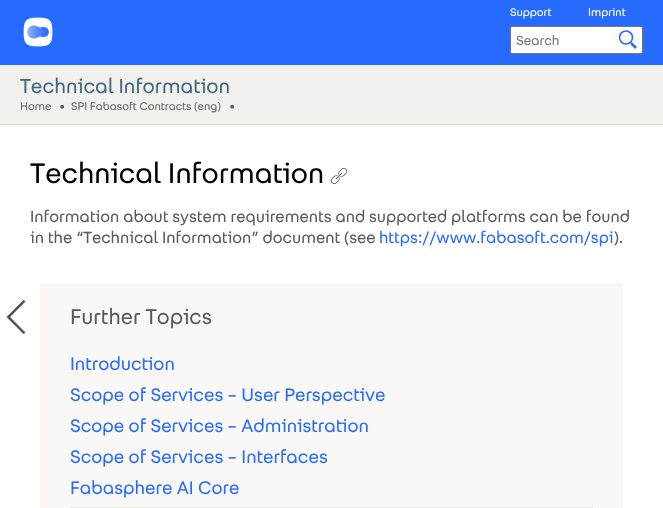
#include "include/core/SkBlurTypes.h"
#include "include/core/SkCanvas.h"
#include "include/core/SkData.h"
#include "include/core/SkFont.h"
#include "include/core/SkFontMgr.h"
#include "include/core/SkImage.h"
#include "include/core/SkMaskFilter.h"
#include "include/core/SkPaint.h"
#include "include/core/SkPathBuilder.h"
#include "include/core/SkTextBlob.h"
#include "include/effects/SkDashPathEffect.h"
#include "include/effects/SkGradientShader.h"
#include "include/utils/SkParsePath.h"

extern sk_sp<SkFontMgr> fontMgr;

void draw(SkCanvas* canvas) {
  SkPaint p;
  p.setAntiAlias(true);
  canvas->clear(SK_ColorWHITE);
  p.setColor(SkColorSetRGB(38, 106, 254));
  canvas->drawRect(SkRect::MakeLTRB(0, 0, 663, 65), p);
  canvas->drawImageRect(SkImages::DeferredFromEncodedData(SkData::MakeFromFileName("images/1.png")), SkRect::MakeLTRB(23, 17, 53, 47), SkSamplingOptions());
  p.setColor(SK_ColorWHITE);
  canvas->drawRoundRect(SkRect::MakeLTRB(510.5f, 26.5f, 642.5f, 53.5f), 1.5f, 1.5f, p);
  p.setStyle(SkPaint::kStroke_Style);
  p.setStrokeWidth(1);
  p.setColor(SkColorSetRGB(118, 118, 118));
  canvas->drawRoundRect(SkRect::MakeLTRB(510.5f, 26.5f, 642.5f, 53.5f), 1.5f, 1.5f, p);
  p.setStrokeWidth(1.6f);
  p.setColor(SkColorSetRGB(38, 106, 254));
  canvas->drawCircle(626, 37.5f, 6.5f, p);
  p.setStrokeWidth(2.5f);
  canvas->drawPath(SkPathBuilder().moveTo(631, 43).lineTo(636, 48).detach(), p);
  p.setStyle(SkPaint::kFill_Style);
  p.setColor(SkColorSetRGB(242, 241, 237));
  canvas->drawRect(SkRect::MakeLTRB(0, 65, 663, 124), p);
  p.setColor(SkColorSetRGB(209, 209, 209));
  canvas->drawRect(SkRect::MakeLTRB(0, 124, 663, 125), p);
  canvas->drawImageRect(SkImages::DeferredFromEncodedData(SkData::MakeFromFileName("images/2.png")), SkRect::MakeLTRB(331, 168, 347, 184), SkSamplingOptions());
  p.setColor(SkColorSetRGB(82, 82, 81));
  canvas->drawPath(SkPathBuilder().moveTo(10, 317).lineTo(25.5f, 301.5f).lineTo(23.5f, 300).lineTo(6.5f, 317).lineTo(23.5f, 334).lineTo(25.5f, 332.5f).close().detach(), p);
  p.setColor(SkColorSetRGB(249, 248, 246));
  canvas->drawRect(SkRect::MakeLTRB(40, 283, 623, 508), p);
  p.setColor(SkColorSetRGB(233, 231, 224));
  canvas->drawRect(SkRect::MakeLTRB(70, 507, 593, 508), p);
  SkFont font1(fontMgr->matchFamilyStyle("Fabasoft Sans", SkFontStyle::Normal()), 11);
  font1.setSubpixel(true);
  p.setColor(SK_ColorWHITE);
  canvas->drawString("Support", 510, 16, font1, p);
  canvas->drawString("Imprint", 588, 16, font1, p);
  SkFont font2(fontMgr->matchFamilyStyle("Fabasoft Sans", SkFontStyle::Normal()), 13);
  font2.setSubpixel(true);
  p.setColor(SkColorSetRGB(117, 117, 117));
  canvas->drawString("Search", 516, 45, font2, p);
  SkFont font3(fontMgr->matchFamilyStyle("Fabasoft Sans", SkFontStyle::Normal()), 20);
  font3.setSubpixel(true);
  p.setColor(SkColorSetRGB(63, 102, 129));
  canvas->drawString("Technical Information", 20, 93, font3, p);
  p.setColor(SkColorSetRGB(102, 102, 100));
  canvas->drawString("Home", 20, 110, font1, p);
  SkFont font4(fontMgr->matchFamilyStyle("Fabasoft Sans", SkFontStyle::Bold()), 11);
  font4.setSubpixel(true);
  p.setColor(SkColorSetRGB(89, 89, 87));
  canvas->drawString("•", 60, 110, font4, p);
  p.setColor(SkColorSetRGB(102, 102, 100));
  canvas->drawString("SPI Fabasoft Contracts (eng)", 71, 110, font1, p);
  p.setColor(SkColorSetRGB(89, 89, 87));
  canvas->drawString("•", 230, 110, font4, p);
  SkFont font5(fontMgr->matchFamilyStyle("Fabasoft Sans", SkFontStyle::Normal()), 28);
  font5.setSubpixel(true);
  p.setColor(SK_ColorBLACK);
  canvas->drawString("Technical Information", 30, 183, font5, p);
  SkFont font6(fontMgr->matchFamilyStyle("Fabasoft Sans", SkFontStyle::Normal()), 16);
  font6.setSubpixel(true);
  p.setColor(SkColorSetRGB(89, 89, 87));
  canvas->drawString("Information about system requirements and supported platforms can be found", 30, 222, font6, p);
  canvas->drawString("in the “Technical Information” document (see", 30, 243, font6, p);
  p.setColor(SkColorSetRGB(38, 106, 254));
  canvas->drawString("https://www.fabasoft.com/spi", 379, 243, font6, p);
  p.setColor(SkColorSetRGB(89, 89, 87));
  canvas->drawString(").", 614, 243, font6, p);
  SkFont font7(fontMgr->matchFamilyStyle("Fabasoft Sans", SkFontStyle::Normal()), 21);
  font7.setSubpixel(true);
  canvas->drawString("Further Topics", 70, 324, font7, p);
  SkFont font8(fontMgr->matchFamilyStyle("Fabasoft Sans", SkFontStyle::Normal()), 18);
  font8.setSubpixel(true);
  p.setColor(SkColorSetRGB(38, 106, 254));
  canvas->drawString("Introduction", 70, 370, font8, p);
  canvas->drawString("Scope of Services – User Perspective", 70, 401, font8, p);
  canvas->drawString("Scope of Services – Administration", 70, 432, font8, p);
  canvas->drawString("Scope of Services – Interfaces", 70, 463, font8, p);
  canvas->drawString("Fabasphere AI Core", 70, 494, font8, p);
}
